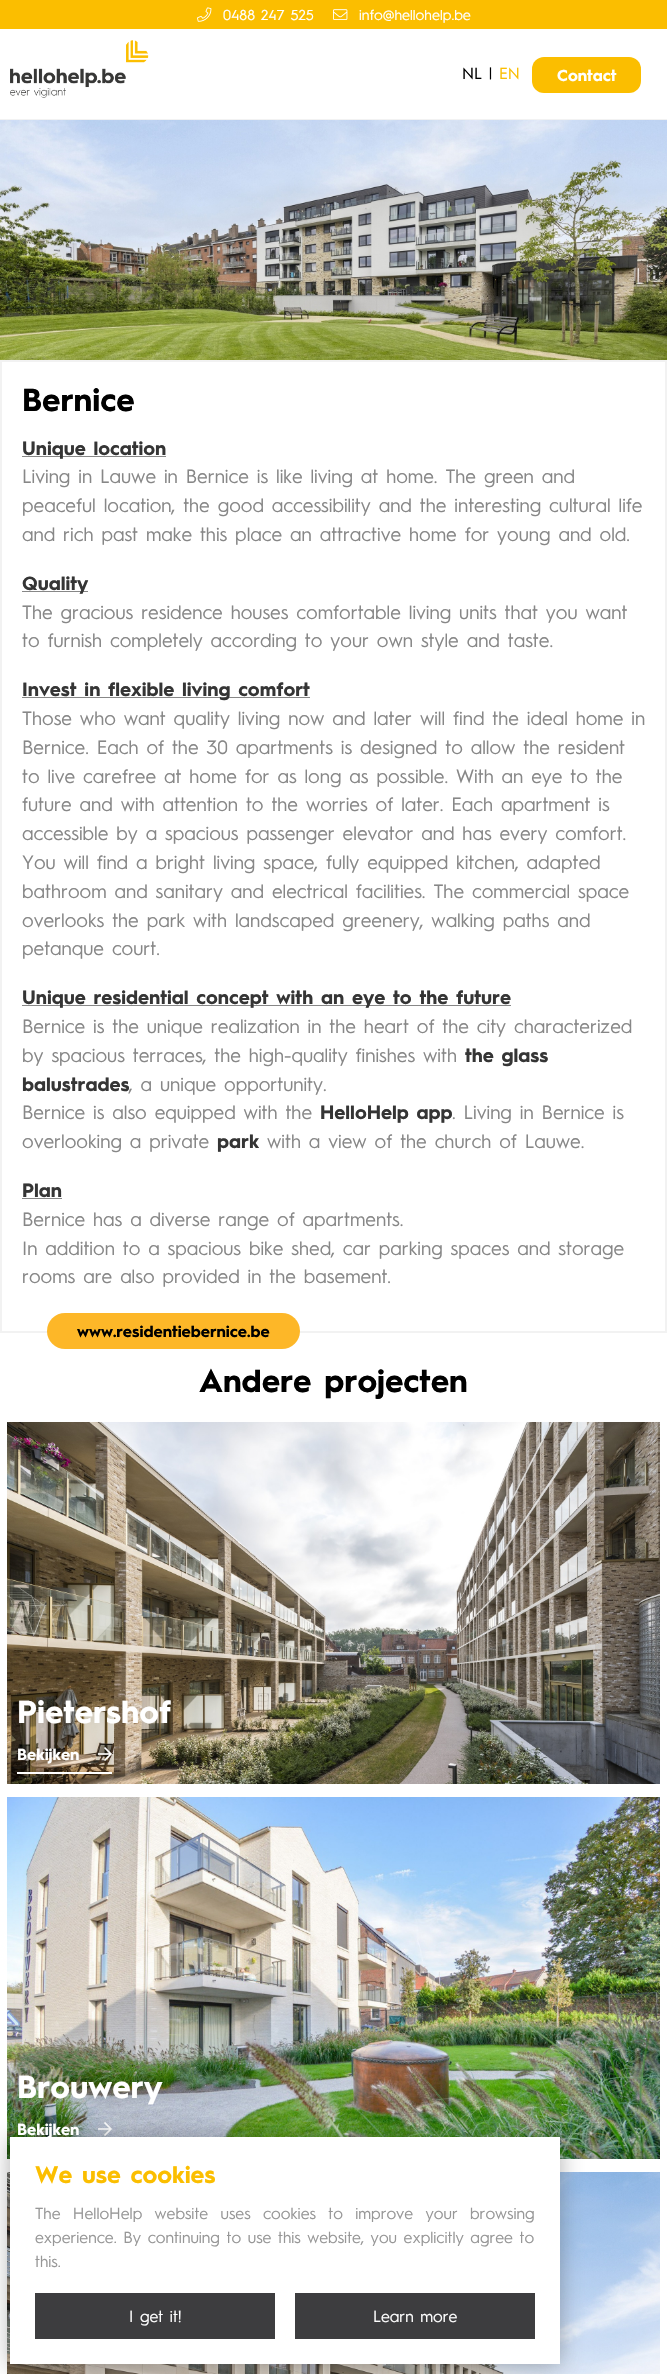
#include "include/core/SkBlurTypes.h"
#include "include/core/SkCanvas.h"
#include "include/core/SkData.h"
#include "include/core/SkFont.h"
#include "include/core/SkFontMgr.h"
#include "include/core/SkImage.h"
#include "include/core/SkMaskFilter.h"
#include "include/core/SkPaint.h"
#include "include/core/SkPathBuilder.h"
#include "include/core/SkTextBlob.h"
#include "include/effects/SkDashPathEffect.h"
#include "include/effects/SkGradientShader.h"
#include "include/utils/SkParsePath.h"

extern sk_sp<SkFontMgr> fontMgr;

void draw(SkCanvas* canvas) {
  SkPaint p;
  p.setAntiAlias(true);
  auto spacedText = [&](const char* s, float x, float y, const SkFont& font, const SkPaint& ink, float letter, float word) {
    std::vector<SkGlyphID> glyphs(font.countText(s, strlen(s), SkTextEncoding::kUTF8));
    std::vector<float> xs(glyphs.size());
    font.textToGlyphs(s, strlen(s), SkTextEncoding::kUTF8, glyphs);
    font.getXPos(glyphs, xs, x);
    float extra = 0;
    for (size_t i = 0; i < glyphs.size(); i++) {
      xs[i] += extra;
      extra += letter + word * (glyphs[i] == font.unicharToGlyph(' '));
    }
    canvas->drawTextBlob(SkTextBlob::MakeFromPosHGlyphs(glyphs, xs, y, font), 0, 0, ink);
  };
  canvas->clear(SK_ColorWHITE);
  p.setColor(SkColorSetRGB(242, 242, 242));
  canvas->drawRect(SkRect::MakeLTRB(0, 119, 667, 120), p);
  p.setColor(SkColorSetRGB(251, 190, 0));
  canvas->drawRect(SkRect::MakeLTRB(0, 0, 667, 29), p);
  canvas->drawImageRect(SkImages::DeferredFromEncodedData(SkData::MakeFromFileName("images/1.png")), SkRect::MakeLTRB(197, 7, 212, 22), SkSamplingOptions());
  canvas->drawImageRect(SkImages::DeferredFromEncodedData(SkData::MakeFromFileName("images/2.png")), SkRect::MakeLTRB(333, 9, 348, 20), SkSamplingOptions());
  canvas->drawImageRect(SkImages::DeferredFromEncodedData(SkData::MakeFromFileName("images/3.png")), SkRect::MakeLTRB(10, 40, 149, 98), SkSamplingOptions());
  canvas->drawRoundRect(SkRect::MakeLTRB(532, 57, 641, 93), 12, 12, p);
  canvas->drawImageRect(SkImages::DeferredFromEncodedData(SkData::MakeFromFileName("images/4.png")), SkRect::MakeLTRB(0, 120, 667, 360), SkSamplingOptions());
  p.setStyle(SkPaint::kStroke_Style);
  p.setStrokeWidth(2);
  p.setColor(SkColorSetRGB(242, 242, 242));
  canvas->drawRect(SkRect::MakeLTRB(1, 361, 666, 1332), p);
  p.setStyle(SkPaint::kFill_Style);
  p.setColor(SkColorSetRGB(135, 135, 135));
  canvas->drawRect(SkRect::MakeLTRB(22, 456, 166, 457), p);
  canvas->drawRect(SkRect::MakeLTRB(22, 591, 88, 592), p);
  canvas->drawRect(SkRect::MakeLTRB(22, 697, 310, 698), p);
  canvas->drawRect(SkRect::MakeLTRB(22, 1005, 511, 1006), p);
  canvas->drawRect(SkRect::MakeLTRB(22, 1198, 62, 1199), p);
  p.setColor(SkColorSetRGB(253, 183, 40));
  canvas->drawRoundRect(SkRect::MakeLTRB(47, 1313, 300, 1349), 18, 18, p);
  canvas->drawImageRect(SkImages::DeferredFromEncodedData(SkData::MakeFromFileName("images/5.png")), SkRect::MakeLTRB(7, 1422, 660, 1784), SkSamplingOptions());
  p.setColor(SK_ColorWHITE);
  canvas->drawRect(SkRect::MakeLTRB(17, 1772, 112, 1774), p);
  canvas->drawImageRect(SkImages::DeferredFromEncodedData(SkData::MakeFromFileName("images/6.png")), SkRect::MakeLTRB(98, 1747, 112, 1761), SkSamplingOptions());
  canvas->drawImageRect(SkImages::DeferredFromEncodedData(SkData::MakeFromFileName("images/7.png")), SkRect::MakeLTRB(7, 1797, 660, 2159), SkSamplingOptions());
  canvas->drawImageRect(SkImages::DeferredFromEncodedData(SkData::MakeFromFileName("images/8.png")), SkRect::MakeLTRB(98, 2122, 112, 2136), SkSamplingOptions());
  canvas->drawImageRect(SkImages::DeferredFromEncodedData(SkData::MakeFromFileName("images/9.png")), SkRect::MakeLTRB(7, 2172, 660, 2374), SkSamplingOptions());
  p.setColor(SkColorSetARGB(105, 61, 61, 61));
  p.setMaskFilter(SkMaskFilter::MakeBlur(kNormal_SkBlurStyle, 11));
  canvas->drawRect(SkRect::MakeLTRB(10, 2139, 560, 2366), p);
  p.setMaskFilter(nullptr);
  p.setColor(SK_ColorWHITE);
  canvas->drawRect(SkRect::MakeLTRB(10, 2137, 560, 2364), p);
  p.setColor(SkColorSetRGB(61, 61, 63));
  canvas->drawRect(SkRect::MakeLTRB(35, 2293, 275, 2339), p);
  canvas->drawRect(SkRect::MakeLTRB(295, 2293, 535, 2339), p);
  SkFont font1(fontMgr->matchFamilyStyle("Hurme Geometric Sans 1", SkFontStyle::Normal()), 14.5f);
  font1.setSubpixel(true);
  p.setColor(SK_ColorWHITE);
  canvas->drawString("0488 247 525", 223, 20, font1, p);
  canvas->drawString("info@hellohelp.be", 359, 20, font1, p);
  SkFont font2(fontMgr->matchFamilyStyle("Hurme Geometric Sans 1", SkFontStyle::Normal()), 16);
  font2.setSubpixel(true);
  p.setColor(SK_ColorBLACK);
  canvas->drawString("NL |", 462, 79, font2, p);
  p.setColor(SkColorSetRGB(251, 190, 0));
  canvas->drawString("EN", 499, 79, font2, p);
  SkFont font3(fontMgr->matchFamilyStyle("Hurme Geometric Sans 1", SkFontStyle::Bold()), 16);
  font3.setSubpixel(true);
  p.setColor(SK_ColorWHITE);
  canvas->drawString("Contact", 557, 81, font3, p);
  SkFont font4(fontMgr->matchFamilyStyle("Hurme Geometric Sans 1", SkFontStyle::Bold()), 32);
  font4.setSubpixel(true);
  p.setColor(SK_ColorBLACK);
  canvas->drawString("Bernice", 22, 411, font4, p);
  SkFont font5(fontMgr->matchFamilyStyle("Hurme Geometric Sans 1", SkFontStyle::Bold()), 19.2f);
  font5.setSubpixel(true);
  p.setColor(SkColorSetRGB(53, 53, 53));
  canvas->drawString("Unique location", 22, 455, font5, p);
  SkFont font6(fontMgr->matchFamilyStyle("Hurme Geometric Sans 1", SkFontStyle::Normal()), 19.2f);
  font6.setSubpixel(true);
  p.setColor(SkColorSetRGB(135, 135, 135));
  canvas->drawString("Living in Lauwe in Bernice is like living at home. The green and", 22, 483, font6, p);
  canvas->drawString("peaceful location, the good accessibility and the interesting cultural life", 22, 512, font6, p);
  canvas->drawString("and rich past make this place an attractive home for young and old.", 22, 541, font6, p);
  p.setColor(SkColorSetRGB(53, 53, 53));
  canvas->drawString("Quality", 22, 590, font5, p);
  p.setColor(SkColorSetRGB(135, 135, 135));
  canvas->drawString("The gracious residence houses comfortable living units that you want", 22, 619, font6, p);
  canvas->drawString("to furnish completely according to your own style and taste.", 22, 647, font6, p);
  p.setColor(SkColorSetRGB(53, 53, 53));
  canvas->drawString("Invest in flexible living comfort", 22, 696, font5, p);
  p.setColor(SkColorSetRGB(135, 135, 135));
  canvas->drawString("Those who want quality living now and later will find the ideal home in", 22, 725, font6, p);
  canvas->drawString("Bernice. Each of the 30 apartments is designed to allow the resident", 22, 754, font6, p);
  canvas->drawString("to live carefree at home for as long as possible. With an eye to the", 22, 783, font6, p);
  canvas->drawString("future and with attention to the worries of later. Each apartment is", 22, 811, font6, p);
  canvas->drawString("accessible by a spacious passenger elevator and has every comfort.", 22, 840, font6, p);
  canvas->drawString("You will find a bright living space, fully equipped kitchen, adapted", 22, 869, font6, p);
  canvas->drawString("bathroom and sanitary and electrical facilities. The commercial space", 22, 898, font6, p);
  canvas->drawString("overlooks the park with landscaped greenery, walking paths and", 22, 927, font6, p);
  canvas->drawString("petanque court.", 22, 955, font6, p);
  p.setColor(SkColorSetRGB(53, 53, 53));
  canvas->drawString("Unique residential concept with an eye to the future", 22, 1004, font5, p);
  p.setColor(SkColorSetRGB(135, 135, 135));
  canvas->drawString("Bernice is the unique realization in the heart of the city characterized", 22, 1033, font6, p);
  canvas->drawString("by spacious terraces, the high-quality finishes with", 22, 1062, font6, p);
  p.setColor(SkColorSetRGB(53, 53, 53));
  canvas->drawString("the glass", 465, 1062, font5, p);
  canvas->drawString("balustrades", 22, 1091, font5, p);
  p.setColor(SkColorSetRGB(135, 135, 135));
  canvas->drawString(", a unique opportunity.", 129, 1091, font6, p);
  canvas->drawString("Bernice is also equipped with the", 22, 1119, font6, p);
  p.setColor(SkColorSetRGB(53, 53, 53));
  canvas->drawString("HelloHelp app", 320, 1119, font5, p);
  p.setColor(SkColorSetRGB(135, 135, 135));
  canvas->drawString(". Living in Bernice is", 452, 1119, font6, p);
  canvas->drawString("overlooking a private", 22, 1148, font6, p);
  p.setColor(SkColorSetRGB(53, 53, 53));
  canvas->drawString("park", 217, 1148, font5, p);
  p.setColor(SkColorSetRGB(135, 135, 135));
  canvas->drawString("with a view of the church of Lauwe.", 267, 1148, font6, p);
  p.setColor(SkColorSetRGB(53, 53, 53));
  canvas->drawString("Plan", 22, 1197, font5, p);
  p.setColor(SkColorSetRGB(135, 135, 135));
  canvas->drawString("Bernice has a diverse range of apartments.", 22, 1226, font6, p);
  canvas->drawString("In addition to a spacious bike shed, car parking spaces and storage", 22, 1255, font6, p);
  canvas->drawString("rooms are also provided in the basement.", 22, 1283, font6, p);
  p.setColor(SK_ColorBLACK);
  canvas->drawString("www.residentiebernice.be", 77, 1337, font3, p);
  canvas->drawString("Andere projecten", 199, 1392, font4, p);
  p.setColor(SK_ColorWHITE);
  canvas->drawString("Pietershof", 17, 1723, font4, p);
  canvas->drawString("Bekijken", 17, 1760, font3, p);
  canvas->drawString("Brouwery", 17, 2098, font4, p);
  canvas->drawString("Bekijken", 17, 2135, font3, p);
  SkFont font7(fontMgr->matchFamilyStyle("Hurme Geometric Sans 1", SkFontStyle::Bold()), 24);
  font7.setSubpixel(true);
  p.setColor(SkColorSetRGB(251, 190, 0));
  canvas->drawString("We use cookies", 35, 2183, font7, p);
  p.setColor(SkColorSetRGB(151, 151, 151));
  spacedText("The HelloHelp website uses cookies to improve your browsing", 35, 2219, font2, p, 0, 5.75f);
  canvas->drawString("experience. By continuing to use this website, you explicitly agree to", 35, 2243, font2, p);
  canvas->drawString("this.", 35, 2267, font2, p);
  p.setColor(SK_ColorWHITE);
  canvas->drawString("I get it!", 129, 2322, font2, p);
  canvas->drawString("Learn more", 373, 2322, font2, p);
}
